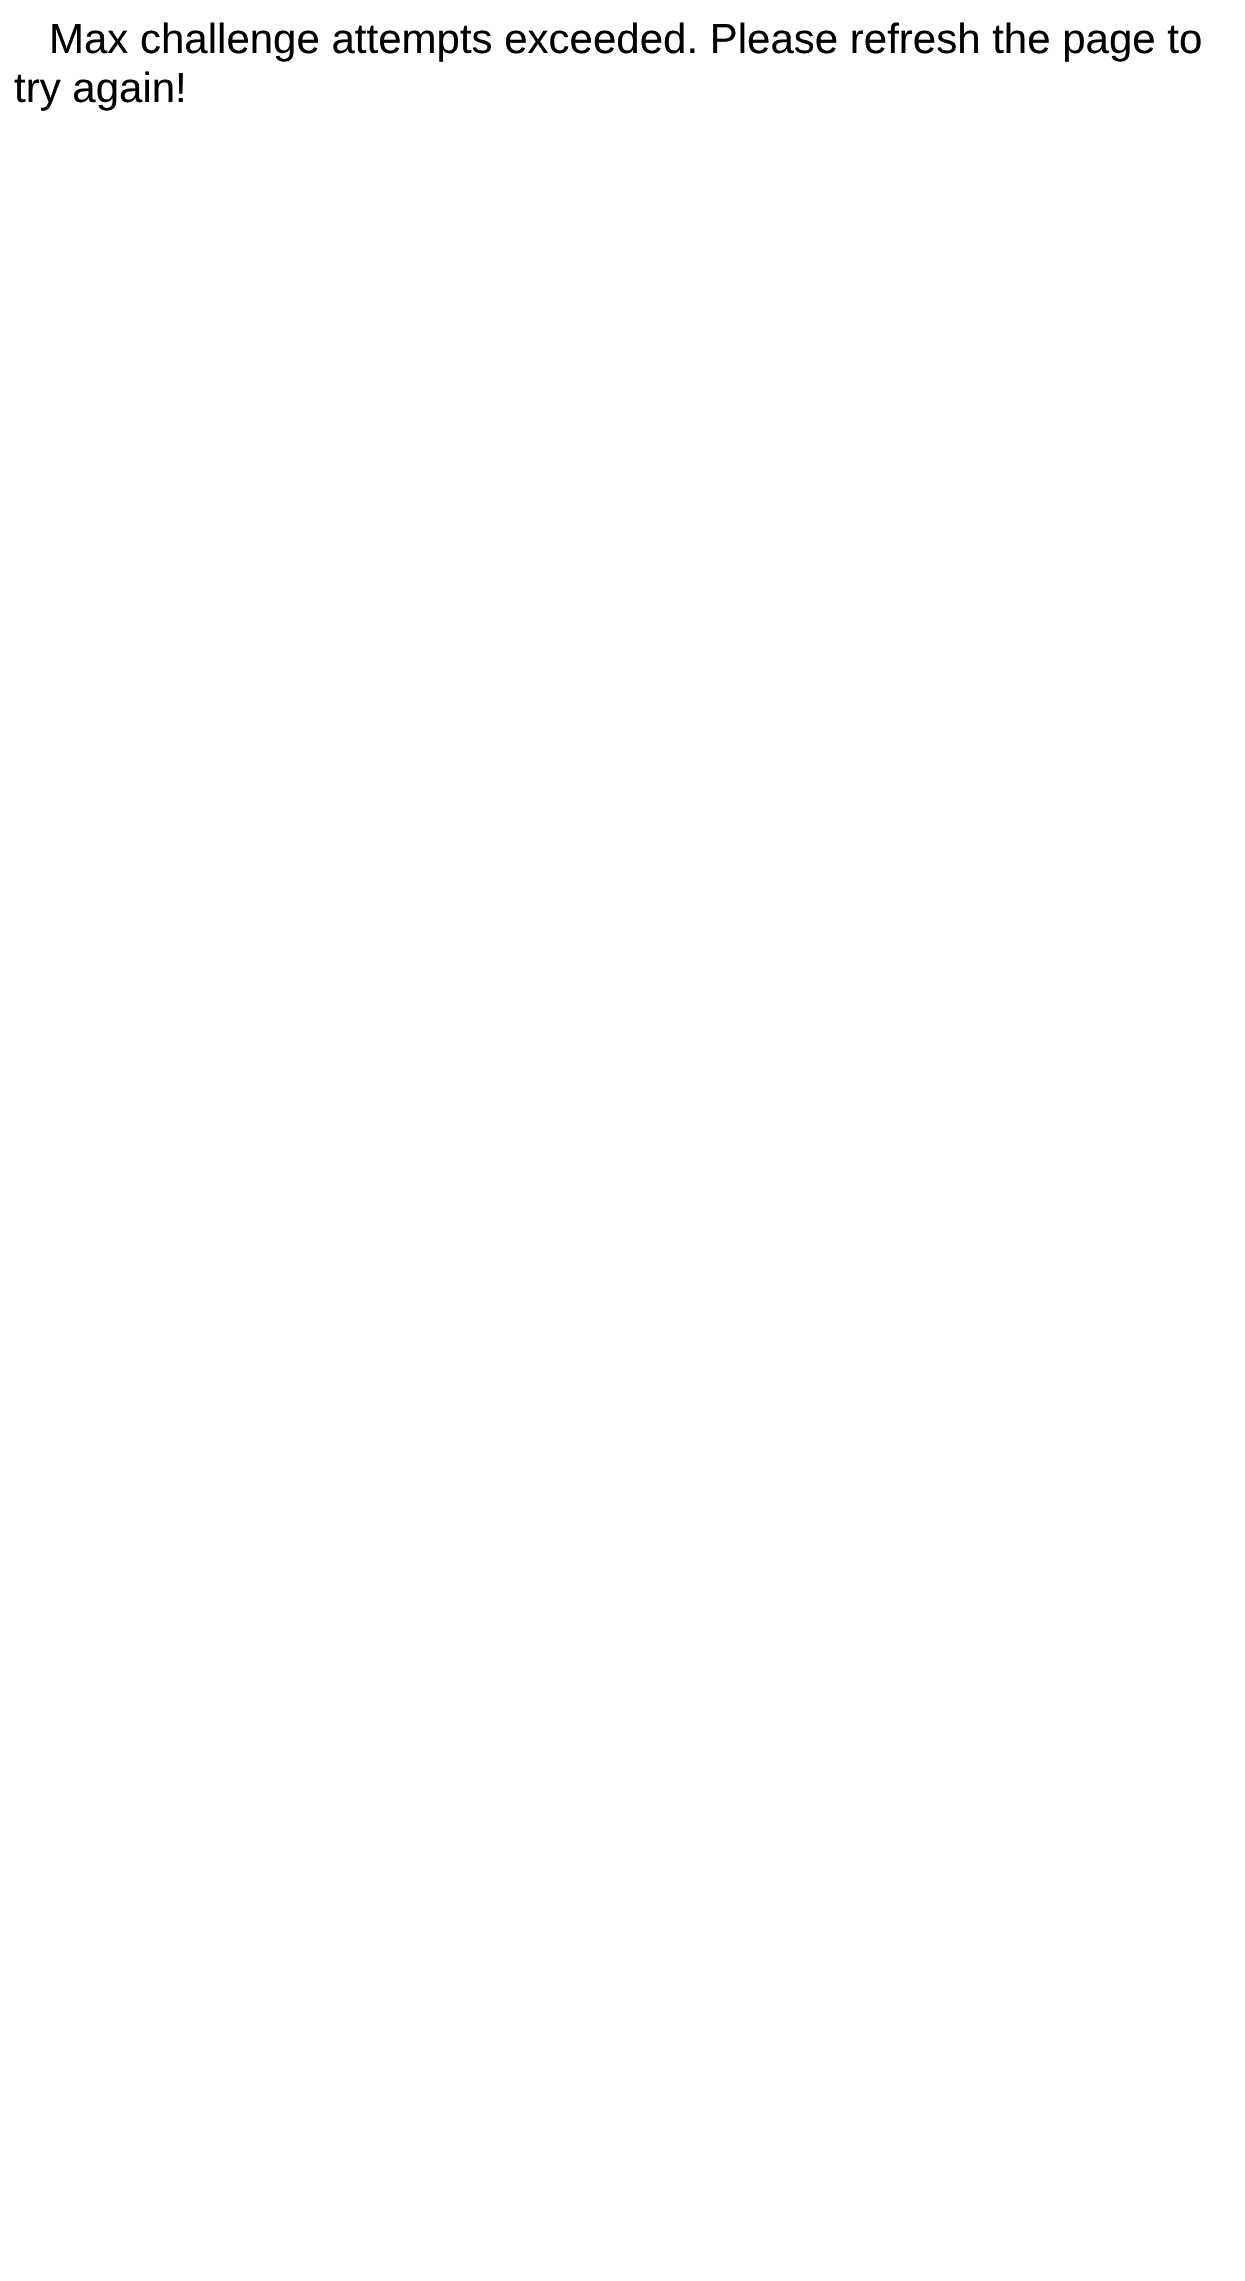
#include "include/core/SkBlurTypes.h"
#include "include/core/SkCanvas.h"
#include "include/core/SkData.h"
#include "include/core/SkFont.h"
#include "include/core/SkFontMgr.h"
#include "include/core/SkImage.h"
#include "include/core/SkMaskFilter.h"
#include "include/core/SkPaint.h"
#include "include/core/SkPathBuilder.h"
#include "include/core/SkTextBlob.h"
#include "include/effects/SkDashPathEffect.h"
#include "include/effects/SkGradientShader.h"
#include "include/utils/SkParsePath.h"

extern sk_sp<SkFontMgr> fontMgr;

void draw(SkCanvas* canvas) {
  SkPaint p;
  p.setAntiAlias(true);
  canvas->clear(SK_ColorWHITE);
  SkFont font1(fontMgr->matchFamilyStyle("Liberation Sans", SkFontStyle::Normal()), 42);
  font1.setSubpixel(true);
  p.setColor(SK_ColorBLACK);
  canvas->drawString("Max challenge attempts exceeded. Please refresh the page to", 49, 53, font1, p);
  canvas->drawString("try again!", 14, 102, font1, p);
}
